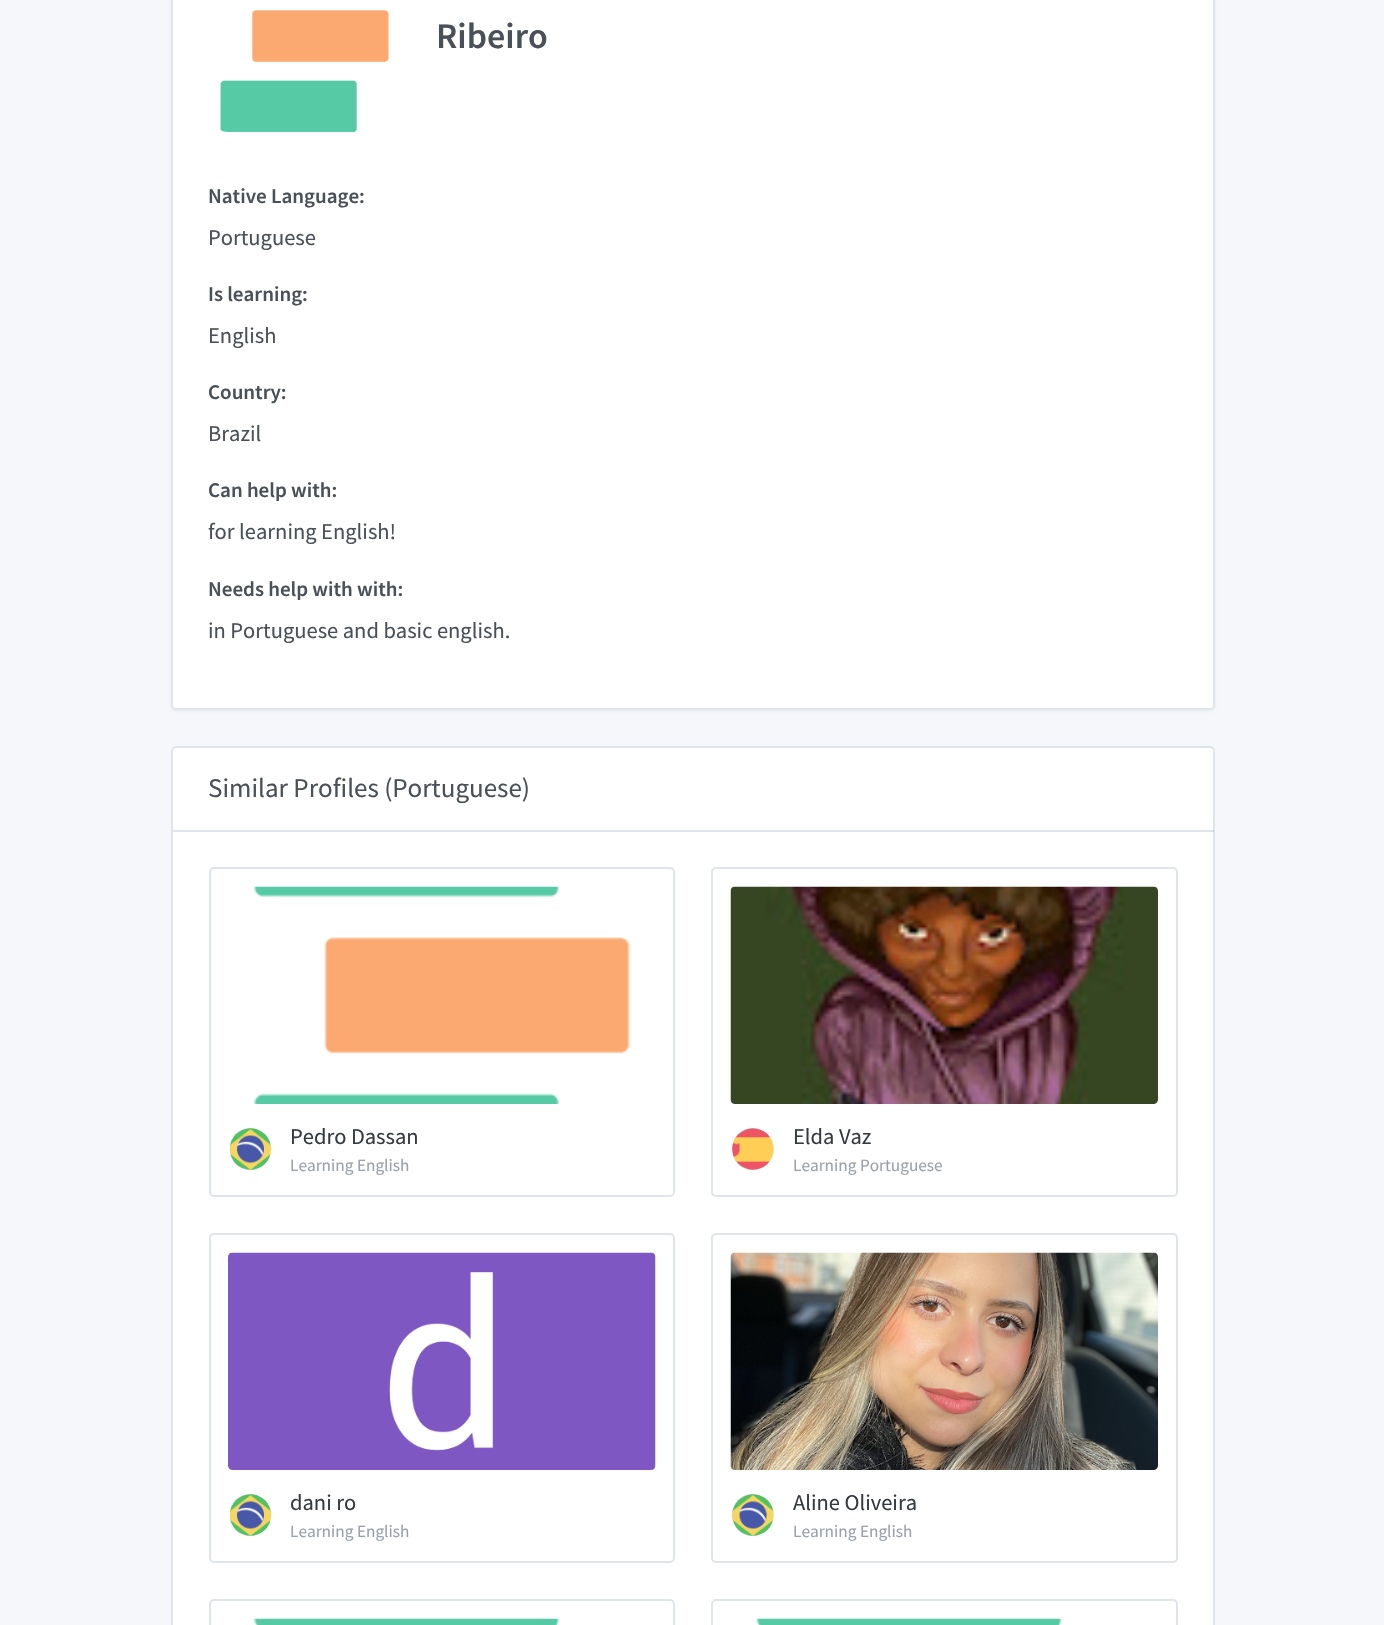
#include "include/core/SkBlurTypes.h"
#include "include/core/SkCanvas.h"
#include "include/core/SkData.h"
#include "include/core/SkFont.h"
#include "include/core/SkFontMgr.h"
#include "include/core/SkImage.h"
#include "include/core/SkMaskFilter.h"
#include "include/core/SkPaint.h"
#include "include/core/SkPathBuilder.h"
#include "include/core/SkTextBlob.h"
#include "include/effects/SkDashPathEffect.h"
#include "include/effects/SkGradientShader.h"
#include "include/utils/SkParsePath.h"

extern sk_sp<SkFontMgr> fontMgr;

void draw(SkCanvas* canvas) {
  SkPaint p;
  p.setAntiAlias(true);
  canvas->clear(SkColorSetRGB(245, 247, 251));
  p.setColor(SkColorSetARGB(13, 0, 0, 0));
  p.setMaskFilter(SkMaskFilter::MakeBlur(kNormal_SkBlurStyle, 1.5f));
  canvas->drawRoundRect(SkRect::MakeLTRB(171, -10, 1215, 711), 5, 5, p);
  p.setMaskFilter(nullptr);
  p.setColor(SK_ColorWHITE);
  canvas->drawRoundRect(SkRect::MakeLTRB(171, -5, 1215, 710), 5, 5, p);
  p.setStyle(SkPaint::kStroke_Style);
  p.setStrokeWidth(2);
  p.setColor(SkColorSetARGB(31, 0, 40, 100));
  canvas->drawRoundRect(SkRect::MakeLTRB(172, -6, 1214, 709), 4, 4, p);
  canvas->drawImageRect(SkImages::DeferredFromEncodedData(SkData::MakeFromFileName("images/1.png")), SkRect::MakeLTRB(220, 10, 389, 132), SkSamplingOptions());
  p.setStyle(SkPaint::kFill_Style);
  p.setColor(SK_ColorWHITE);
  canvas->drawRoundRect(SkRect::MakeLTRB(171, 746, 1215, 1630), 5, 5, p);
  p.setStyle(SkPaint::kStroke_Style);
  p.setColor(SkColorSetARGB(31, 0, 40, 100));
  canvas->drawRoundRect(SkRect::MakeLTRB(172, 747, 1214, 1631), 4, 4, p);
  p.setStyle(SkPaint::kFill_Style);
  canvas->drawRect(SkRect::MakeLTRB(173, 830, 1214, 832), p);
  p.setStyle(SkPaint::kStroke_Style);
  p.setColor(SkColorSetRGB(224, 229, 236));
  canvas->drawRoundRect(SkRect::MakeLTRB(210, 868, 674, 1196), 4, 4, p);
  canvas->drawImageRect(SkImages::DeferredFromEncodedData(SkData::MakeFromFileName("images/2.png")), SkRect::MakeLTRB(254, 886, 630, 1104), SkSamplingOptions());
  p.setStyle(SkPaint::kFill_Style);
  p.setColor(SkColorSetRGB(206, 212, 218));
  canvas->drawRoundRect(SkRect::MakeLTRB(230, 1128, 270, 1170), 20, 20, p);
  canvas->drawImageRect(SkImages::DeferredFromEncodedData(SkData::MakeFromFileName("images/3.png")), SkRect::MakeLTRB(229, 1128, 272, 1170), SkSamplingOptions());
  p.setStyle(SkPaint::kStroke_Style);
  p.setColor(SkColorSetRGB(224, 229, 236));
  canvas->drawRoundRect(SkRect::MakeLTRB(712, 868, 1177, 1196), 4, 4, p);
  canvas->drawImageRect(SkImages::DeferredFromEncodedData(SkData::MakeFromFileName("images/4.png")), SkRect::MakeLTRB(730, 886, 1158, 1104), SkSamplingOptions());
  p.setStyle(SkPaint::kFill_Style);
  p.setColor(SkColorSetRGB(206, 212, 218));
  canvas->drawRoundRect(SkRect::MakeLTRB(732, 1128, 773, 1170), 20.5f, 20.5f, p);
  canvas->drawImageRect(SkImages::DeferredFromEncodedData(SkData::MakeFromFileName("images/5.png")), SkRect::MakeLTRB(732, 1128, 774, 1170), SkSamplingOptions());
  p.setStyle(SkPaint::kStroke_Style);
  p.setColor(SkColorSetRGB(224, 229, 236));
  canvas->drawRoundRect(SkRect::MakeLTRB(210, 1234, 674, 1562), 4, 4, p);
  canvas->drawImageRect(SkImages::DeferredFromEncodedData(SkData::MakeFromFileName("images/6.png")), SkRect::MakeLTRB(228, 1252, 656, 1470), SkSamplingOptions());
  p.setStyle(SkPaint::kFill_Style);
  p.setColor(SkColorSetRGB(206, 212, 218));
  canvas->drawRoundRect(SkRect::MakeLTRB(230, 1494, 270, 1536), 20, 20, p);
  canvas->drawImageRect(SkImages::DeferredFromEncodedData(SkData::MakeFromFileName("images/7.png")), SkRect::MakeLTRB(229, 1494, 272, 1536), SkSamplingOptions());
  p.setStyle(SkPaint::kStroke_Style);
  p.setColor(SkColorSetRGB(224, 229, 236));
  canvas->drawRoundRect(SkRect::MakeLTRB(712, 1234, 1177, 1562), 4, 4, p);
  canvas->drawImageRect(SkImages::DeferredFromEncodedData(SkData::MakeFromFileName("images/8.png")), SkRect::MakeLTRB(730, 1252, 1158, 1470), SkSamplingOptions());
  p.setStyle(SkPaint::kFill_Style);
  p.setColor(SkColorSetRGB(206, 212, 218));
  canvas->drawRoundRect(SkRect::MakeLTRB(732, 1494, 773, 1536), 20.5f, 20.5f, p);
  canvas->drawImageRect(SkImages::DeferredFromEncodedData(SkData::MakeFromFileName("images/9.png")), SkRect::MakeLTRB(732, 1494, 774, 1536), SkSamplingOptions());
  p.setStyle(SkPaint::kStroke_Style);
  p.setColor(SkColorSetRGB(224, 229, 236));
  canvas->drawRoundRect(SkRect::MakeLTRB(210, 1600, 674, 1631), 4, 4, p);
  canvas->drawImageRect(SkImages::DeferredFromEncodedData(SkData::MakeFromFileName("images/10.png")), SkRect::MakeLTRB(254, 1618, 559, 1625), SkSamplingOptions());
  canvas->drawRoundRect(SkRect::MakeLTRB(712, 1600, 1177, 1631), 4, 4, p);
  canvas->drawImageRect(SkImages::DeferredFromEncodedData(SkData::MakeFromFileName("images/11.png")), SkRect::MakeLTRB(756, 1618, 1062, 1625), SkSamplingOptions());
  SkFont font1(fontMgr->matchFamilyStyle("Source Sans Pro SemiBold", SkFontStyle(600, SkFontStyle::kNormal_Width, SkFontStyle::kUpright_Slant)), 36);
  font1.setSubpixel(true);
  p.setStyle(SkPaint::kFill_Style);
  p.setColor(SkColorSetRGB(73, 80, 87));
  canvas->drawString("Ribeiro", 436, 48, font1, p);
  SkFont font2(fontMgr->matchFamilyStyle("Source Sans Pro SemiBold", SkFontStyle(600, SkFontStyle::kNormal_Width, SkFontStyle::kUpright_Slant)), 21);
  font2.setSubpixel(true);
  canvas->drawString("Native Language:", 208, 203, font2, p);
  SkFont font3(fontMgr->matchFamilyStyle("Source Sans Pro", SkFontStyle::Normal()), 22.5f);
  font3.setSubpixel(true);
  canvas->drawString("Portuguese", 208, 245, font3, p);
  canvas->drawString("Is learning:", 208, 301, font2, p);
  canvas->drawString("English", 208, 343, font3, p);
  canvas->drawString("Country:", 208, 399, font2, p);
  canvas->drawString("Brazil", 208, 441, font3, p);
  canvas->drawString("Can help with:", 208, 497, font2, p);
  canvas->drawString("for learning English!", 208, 539, font3, p);
  canvas->drawString("Needs help with with:", 208, 596, font2, p);
  canvas->drawString("in Portuguese and basic english.", 208, 638, font3, p);
  SkFont font4(fontMgr->matchFamilyStyle("Source Sans Pro", SkFontStyle::Normal()), 27);
  font4.setSubpixel(true);
  canvas->drawString("Similar Profiles (Portuguese)", 208, 797, font4, p);
  p.setColor(SkColorSetRGB(52, 58, 64));
  canvas->drawString("Pedro Dassan", 290, 1144, font3, p);
  SkFont font5(fontMgr->matchFamilyStyle("Source Sans Pro", SkFontStyle::Normal()), 17.25f);
  font5.setSubpixel(true);
  p.setColor(SkColorSetRGB(154, 160, 172));
  canvas->drawString("Learning English", 290, 1171, font5, p);
  p.setColor(SkColorSetRGB(52, 58, 64));
  canvas->drawString("Elda Vaz", 793, 1144, font3, p);
  p.setColor(SkColorSetRGB(154, 160, 172));
  canvas->drawString("Learning Portuguese", 793, 1171, font5, p);
  p.setColor(SkColorSetRGB(52, 58, 64));
  canvas->drawString("dani ro", 290, 1510, font3, p);
  p.setColor(SkColorSetRGB(154, 160, 172));
  canvas->drawString("Learning English", 290, 1537, font5, p);
  p.setColor(SkColorSetRGB(52, 58, 64));
  canvas->drawString("Aline Oliveira", 793, 1510, font3, p);
  p.setColor(SkColorSetRGB(154, 160, 172));
  canvas->drawString("Learning English", 793, 1537, font5, p);
}
